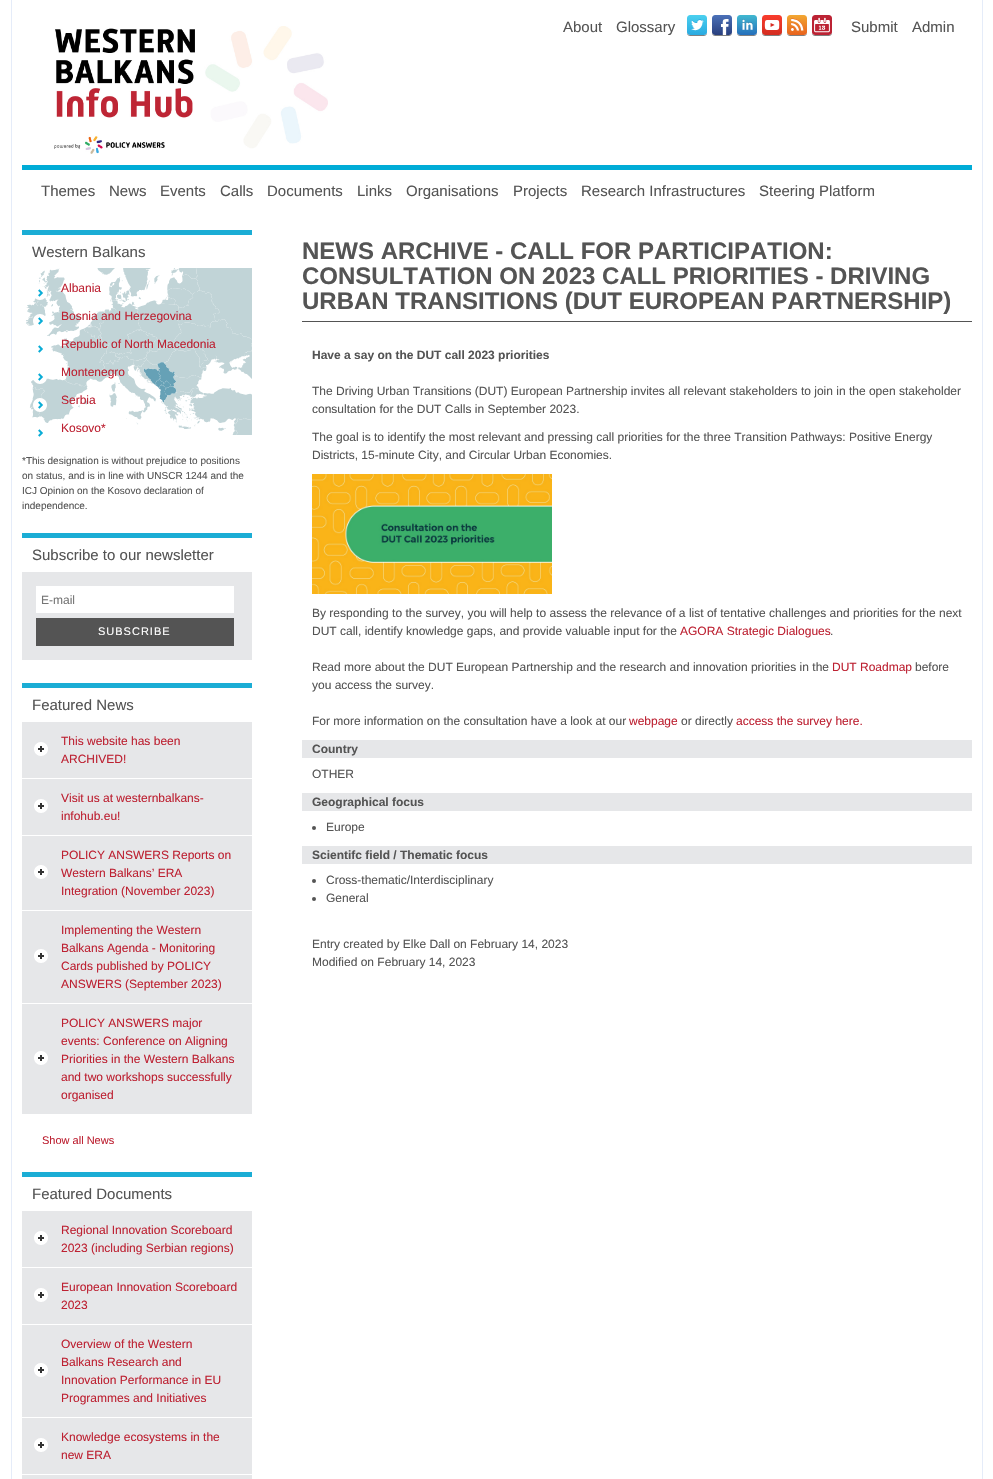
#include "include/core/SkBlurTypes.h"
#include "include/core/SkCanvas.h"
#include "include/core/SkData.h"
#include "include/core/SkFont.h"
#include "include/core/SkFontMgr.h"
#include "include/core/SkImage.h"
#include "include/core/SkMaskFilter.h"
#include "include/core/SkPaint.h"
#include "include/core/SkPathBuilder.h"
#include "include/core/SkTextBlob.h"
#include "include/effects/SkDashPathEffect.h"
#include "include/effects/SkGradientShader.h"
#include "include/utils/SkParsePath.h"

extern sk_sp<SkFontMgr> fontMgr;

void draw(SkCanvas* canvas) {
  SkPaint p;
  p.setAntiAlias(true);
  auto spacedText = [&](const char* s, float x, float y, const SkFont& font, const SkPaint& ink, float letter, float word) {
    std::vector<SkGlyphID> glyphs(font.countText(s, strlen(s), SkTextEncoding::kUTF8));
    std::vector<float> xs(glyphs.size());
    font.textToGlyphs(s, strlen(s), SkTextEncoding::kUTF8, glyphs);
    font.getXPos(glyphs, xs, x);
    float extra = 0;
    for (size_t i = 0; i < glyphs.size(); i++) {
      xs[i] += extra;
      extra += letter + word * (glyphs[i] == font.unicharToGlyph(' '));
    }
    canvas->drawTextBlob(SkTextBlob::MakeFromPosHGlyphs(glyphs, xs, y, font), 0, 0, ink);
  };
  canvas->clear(SK_ColorWHITE);
  p.setColor(SkColorSetRGB(229, 236, 249));
  canvas->drawRect(SkRect::MakeLTRB(982, 0, 983, 1479), p);
  canvas->drawRect(SkRect::MakeLTRB(11, 0, 12, 1479), p);
  p.setColor(SkColorSetRGB(0, 172, 215));
  canvas->drawRect(SkRect::MakeLTRB(22, 165, 972, 170), p);
  canvas->drawImageRect(SkImages::DeferredFromEncodedData(SkData::MakeFromFileName("images/1.png")), SkRect::MakeLTRB(54, 26, 328, 154), SkSamplingOptions());
  p.setColor(SkColorSetRGB(128, 128, 128));
  canvas->drawPath(SkPathBuilder().moveTo(687, 32).cubicTo(687, 36, 689, 36, 692.5f, 36).lineTo(701.5f, 36).cubicTo(705, 36, 707, 36, 707, 32).cubicTo(707, 33.5f, 705.5f, 35, 704, 35).lineTo(690, 35).cubicTo(688.5f, 35, 687, 33.5f, 687, 32).close().detach(), p);
  canvas->drawImageRect(SkImages::DeferredFromEncodedData(SkData::MakeFromFileName("images/2.png")), SkRect::MakeLTRB(687, 15, 707, 35), SkSamplingOptions());
  canvas->drawPath(SkPathBuilder().moveTo(712, 32).cubicTo(712, 36, 714, 36, 717.5f, 36).lineTo(726.5f, 36).cubicTo(730, 36, 732, 36, 732, 32).cubicTo(732, 33.5f, 730.5f, 35, 729, 35).lineTo(715, 35).cubicTo(713.5f, 35, 712, 33.5f, 712, 32).close().detach(), p);
  canvas->drawImageRect(SkImages::DeferredFromEncodedData(SkData::MakeFromFileName("images/3.png")), SkRect::MakeLTRB(712, 15, 732, 35), SkSamplingOptions());
  canvas->drawPath(SkPathBuilder().moveTo(737, 32).cubicTo(737, 36, 739, 36, 742.5f, 36).lineTo(751.5f, 36).cubicTo(755, 36, 757, 36, 757, 32).cubicTo(757, 33.5f, 755.5f, 35, 754, 35).lineTo(740, 35).cubicTo(738.5f, 35, 737, 33.5f, 737, 32).close().detach(), p);
  canvas->drawImageRect(SkImages::DeferredFromEncodedData(SkData::MakeFromFileName("images/4.png")), SkRect::MakeLTRB(737, 15, 757, 35), SkSamplingOptions());
  canvas->drawPath(SkPathBuilder().moveTo(762, 32).cubicTo(762, 36, 764, 36, 767.5f, 36).lineTo(776.5f, 36).cubicTo(780, 36, 782, 36, 782, 32).cubicTo(782, 33.5f, 780.5f, 35, 779, 35).lineTo(765, 35).cubicTo(763.5f, 35, 762, 33.5f, 762, 32).close().detach(), p);
  canvas->drawImageRect(SkImages::DeferredFromEncodedData(SkData::MakeFromFileName("images/5.png")), SkRect::MakeLTRB(762, 15, 782, 35), SkSamplingOptions());
  canvas->drawPath(SkPathBuilder().moveTo(787, 32).cubicTo(787, 36, 789, 36, 792.5f, 36).lineTo(801.5f, 36).cubicTo(805, 36, 807, 36, 807, 32).cubicTo(807, 33.5f, 805.5f, 35, 804, 35).lineTo(790, 35).cubicTo(788.5f, 35, 787, 33.5f, 787, 32).close().detach(), p);
  canvas->drawImageRect(SkImages::DeferredFromEncodedData(SkData::MakeFromFileName("images/6.png")), SkRect::MakeLTRB(787, 15, 807, 35), SkSamplingOptions());
  canvas->drawPath(SkPathBuilder().moveTo(812, 32).cubicTo(812, 36, 814, 36, 817.5f, 36).lineTo(826.5f, 36).cubicTo(830, 36, 832, 36, 832, 32).cubicTo(832, 33.5f, 830.5f, 35, 829, 35).lineTo(815, 35).cubicTo(813.5f, 35, 812, 33.5f, 812, 32).close().detach(), p);
  canvas->drawImageRect(SkImages::DeferredFromEncodedData(SkData::MakeFromFileName("images/7.png")), SkRect::MakeLTRB(812, 15, 832, 35), SkSamplingOptions());
  canvas->drawImageRect(SkImages::DeferredFromEncodedData(SkData::MakeFromFileName("images/8.png")), SkRect::MakeLTRB(25, 268, 252, 435), SkSamplingOptions());
  p.setColor(SkColorSetRGB(27, 173, 213));
  canvas->drawRect(SkRect::MakeLTRB(22, 230, 252, 235), p);
  canvas->drawImageRect(SkImages::DeferredFromEncodedData(SkData::MakeFromFileName("images/9.png")), SkRect::MakeLTRB(35, 286, 47, 300), SkSamplingOptions());
  canvas->drawImageRect(SkImages::DeferredFromEncodedData(SkData::MakeFromFileName("images/10.png")), SkRect::MakeLTRB(33, 314, 45, 325), SkSamplingOptions());
  canvas->drawImageRect(SkImages::DeferredFromEncodedData(SkData::MakeFromFileName("images/11.png")), SkRect::MakeLTRB(38, 345, 43, 353), SkSamplingOptions());
  canvas->drawImageRect(SkImages::DeferredFromEncodedData(SkData::MakeFromFileName("images/12.png")), SkRect::MakeLTRB(33, 373, 47, 384), SkSamplingOptions());
  canvas->drawImageRect(SkImages::DeferredFromEncodedData(SkData::MakeFromFileName("images/13.png")), SkRect::MakeLTRB(33, 398, 47, 412), SkSamplingOptions());
  canvas->drawImageRect(SkImages::DeferredFromEncodedData(SkData::MakeFromFileName("images/11.png")), SkRect::MakeLTRB(38, 429, 43, 437), SkSamplingOptions());
  canvas->drawRect(SkRect::MakeLTRB(22, 533, 252, 538), p);
  p.setColor(SkColorSetRGB(230, 231, 233));
  canvas->drawRect(SkRect::MakeLTRB(22, 572, 252, 660), p);
  p.setColor(SK_ColorWHITE);
  canvas->drawRect(SkRect::MakeLTRB(36, 586, 234, 613), p);
  p.setColor(SkColorSetRGB(84, 84, 84));
  canvas->drawRect(SkRect::MakeLTRB(36, 618, 234, 646), p);
  p.setColor(SkColorSetRGB(27, 173, 213));
  canvas->drawRect(SkRect::MakeLTRB(22, 683, 252, 688), p);
  p.setColor(SkColorSetRGB(230, 231, 233));
  canvas->drawRect(SkRect::MakeLTRB(22, 722, 252, 778), p);
  canvas->drawImageRect(SkImages::DeferredFromEncodedData(SkData::MakeFromFileName("images/14.png")), SkRect::MakeLTRB(34, 742, 48, 756), SkSamplingOptions());
  canvas->drawRect(SkRect::MakeLTRB(22, 779, 252, 835), p);
  canvas->drawImageRect(SkImages::DeferredFromEncodedData(SkData::MakeFromFileName("images/14.png")), SkRect::MakeLTRB(34, 799, 48, 813), SkSamplingOptions());
  canvas->drawRect(SkRect::MakeLTRB(22, 836, 252, 910), p);
  canvas->drawImageRect(SkImages::DeferredFromEncodedData(SkData::MakeFromFileName("images/14.png")), SkRect::MakeLTRB(34, 865, 48, 879), SkSamplingOptions());
  canvas->drawRect(SkRect::MakeLTRB(22, 911, 252, 1003), p);
  canvas->drawImageRect(SkImages::DeferredFromEncodedData(SkData::MakeFromFileName("images/14.png")), SkRect::MakeLTRB(34, 949, 48, 963), SkSamplingOptions());
  canvas->drawRect(SkRect::MakeLTRB(22, 1004, 252, 1114), p);
  canvas->drawImageRect(SkImages::DeferredFromEncodedData(SkData::MakeFromFileName("images/14.png")), SkRect::MakeLTRB(34, 1051, 48, 1065), SkSamplingOptions());
  p.setColor(SkColorSetRGB(27, 173, 213));
  canvas->drawRect(SkRect::MakeLTRB(22, 1172, 252, 1177), p);
  p.setColor(SkColorSetRGB(230, 231, 233));
  canvas->drawRect(SkRect::MakeLTRB(22, 1211, 252, 1267), p);
  canvas->drawImageRect(SkImages::DeferredFromEncodedData(SkData::MakeFromFileName("images/14.png")), SkRect::MakeLTRB(34, 1231, 48, 1245), SkSamplingOptions());
  canvas->drawRect(SkRect::MakeLTRB(22, 1268, 252, 1324), p);
  canvas->drawImageRect(SkImages::DeferredFromEncodedData(SkData::MakeFromFileName("images/14.png")), SkRect::MakeLTRB(34, 1288, 48, 1302), SkSamplingOptions());
  canvas->drawRect(SkRect::MakeLTRB(22, 1325, 252, 1417), p);
  canvas->drawImageRect(SkImages::DeferredFromEncodedData(SkData::MakeFromFileName("images/14.png")), SkRect::MakeLTRB(34, 1363, 48, 1377), SkSamplingOptions());
  canvas->drawRect(SkRect::MakeLTRB(22, 1418, 252, 1474), p);
  canvas->drawImageRect(SkImages::DeferredFromEncodedData(SkData::MakeFromFileName("images/14.png")), SkRect::MakeLTRB(34, 1438, 48, 1452), SkSamplingOptions());
  canvas->drawRect(SkRect::MakeLTRB(22, 1475, 252, 1479), p);
  p.setColor(SkColorSetRGB(84, 84, 84));
  canvas->drawRect(SkRect::MakeLTRB(302, 321, 972, 322), p);
  canvas->drawImageRect(SkImages::DeferredFromEncodedData(SkData::MakeFromFileName("images/15.png")), SkRect::MakeLTRB(312, 474, 552, 594), SkSamplingOptions());
  p.setColor(SkColorSetRGB(230, 231, 233));
  canvas->drawRect(SkRect::MakeLTRB(302, 740, 972, 758), p);
  canvas->drawRect(SkRect::MakeLTRB(302, 793, 972, 811), p);
  p.setColor(SkColorSetRGB(84, 84, 84));
  canvas->drawCircle(314, 828, 2, p);
  p.setColor(SkColorSetRGB(230, 231, 233));
  canvas->drawRect(SkRect::MakeLTRB(302, 846, 972, 864), p);
  p.setColor(SkColorSetRGB(84, 84, 84));
  canvas->drawCircle(314, 881, 2, p);
  canvas->drawCircle(314, 899, 2, p);
  SkFont font1(fontMgr->matchFamilyStyle("Liberation Sans", SkFontStyle::Normal()), 15);
  font1.setSubpixel(true);
  canvas->drawString("About", 563, 32, font1, p);
  canvas->drawString("Glossary", 616, 32, font1, p);
  canvas->drawString("Submit", 851, 32, font1, p);
  canvas->drawString("Admin", 912, 32, font1, p);
  canvas->drawString("Themes", 41, 196, font1, p);
  canvas->drawString("News", 109, 196, font1, p);
  canvas->drawString("Events", 160, 196, font1, p);
  canvas->drawString("Calls", 220, 196, font1, p);
  canvas->drawString("Documents", 267, 196, font1, p);
  canvas->drawString("Links", 357, 196, font1, p);
  canvas->drawString("Organisations", 406, 196, font1, p);
  canvas->drawString("Projects", 513, 196, font1, p);
  canvas->drawString("Research Infrastructures", 581, 196, font1, p);
  canvas->drawString("Steering Platform", 759, 196, font1, p);
  canvas->drawString("Western Balkans", 32, 257, font1, p);
  SkFont font2(fontMgr->matchFamilyStyle("Liberation Sans", SkFontStyle::Normal()), 12);
  font2.setSubpixel(true);
  p.setColor(SkColorSetRGB(189, 33, 50));
  canvas->drawString("Albania", 61, 292, font2, p);
  canvas->drawString("Bosnia and Herzegovina", 61, 320, font2, p);
  canvas->drawString("Republic of North Macedonia", 61, 348, font2, p);
  canvas->drawString("Montenegro", 61, 376, font2, p);
  canvas->drawString("Serbia", 61, 404, font2, p);
  canvas->drawString("Kosovo*", 61, 432, font2, p);
  SkFont font3(fontMgr->matchFamilyStyle("Liberation Sans", SkFontStyle::Normal()), 10);
  font3.setSubpixel(true);
  p.setColor(SkColorSetRGB(84, 84, 84));
  canvas->drawString("*This designation is without prejudice to positions", 22, 464, font3, p);
  canvas->drawString("on status, and is in line with UNSCR 1244 and the", 22, 479, font3, p);
  canvas->drawString("ICJ Opinion on the Kosovo declaration of", 22, 494, font3, p);
  canvas->drawString("independence.", 22, 509, font3, p);
  canvas->drawString("Subscribe to our newsletter", 32, 560, font1, p);
  p.setColor(SkColorSetRGB(117, 117, 117));
  canvas->drawString("E-mail", 41, 604, font2, p);
  SkFont font4(fontMgr->matchFamilyStyle("Liberation Sans", SkFontStyle::Normal()), 11);
  font4.setSubpixel(true);
  p.setColor(SK_ColorWHITE);
  spacedText("SUBSCRIBE", 98, 635, font4, p, 1, 0);
  p.setColor(SkColorSetRGB(84, 84, 84));
  canvas->drawString("Featured News", 32, 710, font1, p);
  p.setColor(SkColorSetRGB(189, 33, 50));
  canvas->drawString("This website has been", 61, 745, font2, p);
  canvas->drawString("ARCHIVED!", 61, 763, font2, p);
  canvas->drawString("Visit us at westernbalkans-", 61, 802, font2, p);
  canvas->drawString("infohub.eu!", 61, 820, font2, p);
  canvas->drawString("POLICY ANSWERS Reports on", 61, 859, font2, p);
  canvas->drawString("Western Balkans’ ERA", 61, 877, font2, p);
  canvas->drawString("Integration (November 2023)", 61, 895, font2, p);
  canvas->drawString("Implementing the Western", 61, 934, font2, p);
  canvas->drawString("Balkans Agenda - Monitoring", 61, 952, font2, p);
  canvas->drawString("Cards published by POLICY", 61, 970, font2, p);
  canvas->drawString("ANSWERS (September 2023)", 61, 988, font2, p);
  canvas->drawString("POLICY ANSWERS major", 61, 1027, font2, p);
  canvas->drawString("events: Conference on Aligning", 61, 1045, font2, p);
  canvas->drawString("Priorities in the Western Balkans", 61, 1063, font2, p);
  canvas->drawString("and two workshops successfully", 61, 1081, font2, p);
  canvas->drawString("organised", 61, 1099, font2, p);
  canvas->drawString("Show all News", 42, 1144, font4, p);
  p.setColor(SkColorSetRGB(84, 84, 84));
  canvas->drawString("Featured Documents", 32, 1199, font1, p);
  p.setColor(SkColorSetRGB(189, 33, 50));
  canvas->drawString("Regional Innovation Scoreboard", 61, 1234, font2, p);
  canvas->drawString("2023 (including Serbian regions)", 61, 1252, font2, p);
  canvas->drawString("European Innovation Scoreboard", 61, 1291, font2, p);
  canvas->drawString("2023", 61, 1309, font2, p);
  canvas->drawString("Overview of the Western", 61, 1348, font2, p);
  canvas->drawString("Balkans Research and", 61, 1366, font2, p);
  canvas->drawString("Innovation Performance in EU", 61, 1384, font2, p);
  canvas->drawString("Programmes and Initiatives", 61, 1402, font2, p);
  canvas->drawString("Knowledge ecosystems in the", 61, 1441, font2, p);
  canvas->drawString("new ERA", 61, 1459, font2, p);
  SkFont font5(fontMgr->matchFamilyStyle("Liberation Sans", SkFontStyle::Bold()), 24);
  font5.setSubpixel(true);
  p.setColor(SkColorSetRGB(84, 84, 84));
  canvas->drawString("NEWS ARCHIVE - CALL FOR PARTICIPATION:", 302, 259, font5, p);
  canvas->drawString("CONSULTATION ON 2023 CALL PRIORITIES - DRIVING", 302, 284, font5, p);
  canvas->drawString("URBAN TRANSITIONS (DUT EUROPEAN PARTNERSHIP)", 302, 309, font5, p);
  SkFont font6(fontMgr->matchFamilyStyle("Liberation Sans", SkFontStyle::Bold()), 12);
  font6.setSubpixel(true);
  canvas->drawString("Have a say on the DUT call 2023 priorities", 312, 359, font6, p);
  canvas->drawString("The Driving Urban Transitions (DUT) European Partnership invites all relevant stakeholders to join in the open stakeholder", 312, 395, font2, p);
  canvas->drawString("consultation for the DUT Calls in September 2023.", 312, 413, font2, p);
  canvas->drawString("The goal is to identify the most relevant and pressing call priorities for the three Transition Pathways: Positive Energy", 312, 441, font2, p);
  canvas->drawString("Districts, 15-minute City, and Circular Urban Economies.", 312, 459, font2, p);
  canvas->drawString("By responding to the survey, you will help to assess the relevance of a list of tentative challenges and priorities for the next", 312, 617, font2, p);
  canvas->drawString("DUT call, identify knowledge gaps, and provide valuable input for the", 312, 635, font2, p);
  p.setColor(SkColorSetRGB(189, 33, 50));
  canvas->drawString("AGORA Strategic Dialogues", 680, 635, font2, p);
  p.setColor(SkColorSetRGB(84, 84, 84));
  canvas->drawString(".", 830, 635, font2, p);
  canvas->drawString("Read more about the DUT European Partnership and the research and innovation priorities in the", 312, 671, font2, p);
  p.setColor(SkColorSetRGB(189, 33, 50));
  canvas->drawString("DUT Roadmap", 832, 671, font2, p);
  p.setColor(SkColorSetRGB(84, 84, 84));
  canvas->drawString("before", 915, 671, font2, p);
  canvas->drawString("you access the survey.", 312, 689, font2, p);
  canvas->drawString("For more information on the consultation have a look at our", 312, 725, font2, p);
  p.setColor(SkColorSetRGB(189, 33, 50));
  canvas->drawString("webpage", 629, 725, font2, p);
  p.setColor(SkColorSetRGB(84, 84, 84));
  canvas->drawString("or directly", 681, 725, font2, p);
  p.setColor(SkColorSetRGB(189, 33, 50));
  canvas->drawString("access the survey here.", 736, 725, font2, p);
  p.setColor(SkColorSetRGB(84, 84, 84));
  canvas->drawString("Country", 312, 753, font6, p);
  canvas->drawString("OTHER", 312, 778, font2, p);
  canvas->drawString("Geographical focus", 312, 806, font6, p);
  canvas->drawString("Europe", 326, 831, font2, p);
  canvas->drawString("Scientifc field / Thematic focus", 312, 859, font6, p);
  canvas->drawString("Cross-thematic/Interdisciplinary", 326, 884, font2, p);
  canvas->drawString("General", 326, 902, font2, p);
  canvas->drawString("Entry created by Elke Dall on February 14, 2023", 312, 948, font2, p);
  canvas->drawString("Modified on February 14, 2023", 312, 966, font2, p);
}
